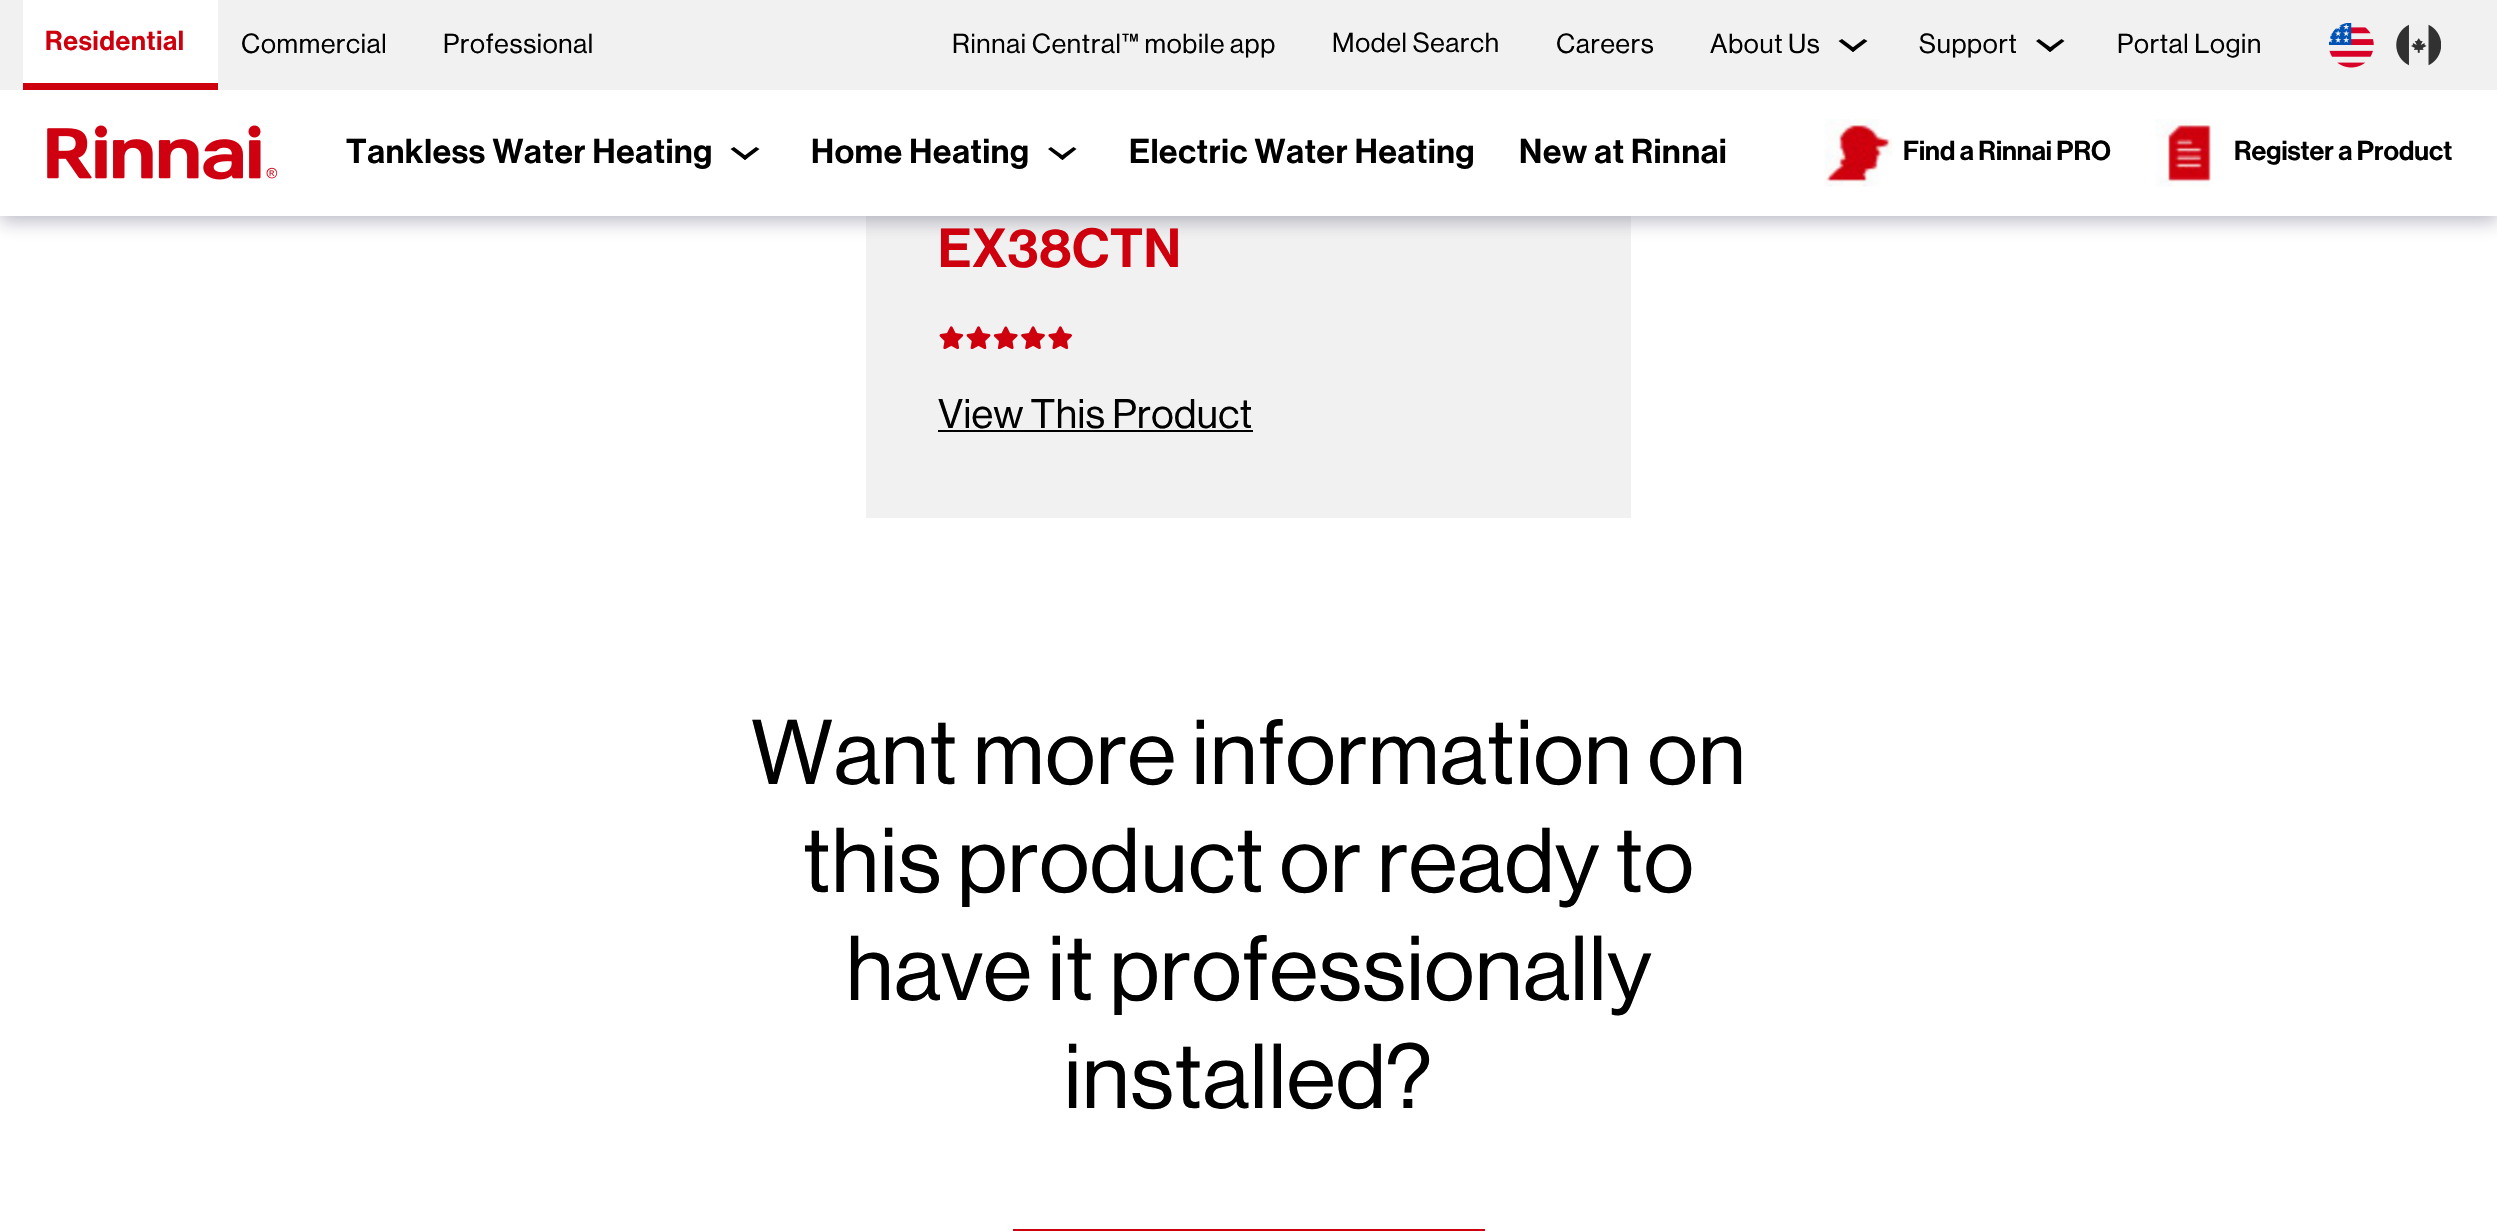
#include "include/core/SkBlurTypes.h"
#include "include/core/SkCanvas.h"
#include "include/core/SkData.h"
#include "include/core/SkFont.h"
#include "include/core/SkFontMgr.h"
#include "include/core/SkImage.h"
#include "include/core/SkMaskFilter.h"
#include "include/core/SkPaint.h"
#include "include/core/SkPathBuilder.h"
#include "include/core/SkTextBlob.h"
#include "include/effects/SkDashPathEffect.h"
#include "include/effects/SkGradientShader.h"
#include "include/utils/SkParsePath.h"

extern sk_sp<SkFontMgr> fontMgr;

void draw(SkCanvas* canvas) {
  SkPaint p;
  p.setAntiAlias(true);
  auto spacedText = [&](const char* s, float x, float y, const SkFont& font, const SkPaint& ink, float letter, float word) {
    std::vector<SkGlyphID> glyphs(font.countText(s, strlen(s), SkTextEncoding::kUTF8));
    std::vector<float> xs(glyphs.size());
    font.textToGlyphs(s, strlen(s), SkTextEncoding::kUTF8, glyphs);
    font.getXPos(glyphs, xs, x);
    float extra = 0;
    for (size_t i = 0; i < glyphs.size(); i++) {
      xs[i] += extra;
      extra += letter + word * (glyphs[i] == font.unicharToGlyph(' '));
    }
    canvas->drawTextBlob(SkTextBlob::MakeFromPosHGlyphs(glyphs, xs, y, font), 0, 0, ink);
  };
  canvas->clear(SK_ColorWHITE);
  p.setColor(SkColorSetRGB(241, 241, 241));
  canvas->drawRect(SkRect::MakeLTRB(866, 216, 1631, 518), p);
  p.setColor(SkColorSetARGB(77, 19, 23, 61));
  p.setMaskFilter(SkMaskFilter::MakeBlur(kNormal_SkBlurStyle, 9));
  canvas->drawRect(SkRect::MakeLTRB(0, 5, 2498, 221), p);
  p.setMaskFilter(nullptr);
  p.setColor(SK_ColorWHITE);
  canvas->drawRect(SkRect::MakeLTRB(0, 90, 2497, 216), p);
  p.setColor(SkColorSetRGB(241, 241, 241));
  canvas->drawRect(SkRect::MakeLTRB(0, 0, 2497, 90), p);
  p.setColor(SK_ColorWHITE);
  canvas->drawRect(SkRect::MakeLTRB(23, 0, 218, 83), p);
  p.setColor(SkColorSetRGB(207, 0, 13));
  canvas->drawRect(SkRect::MakeLTRB(23, 83, 218, 90), p);
  p.setColor(SK_ColorBLACK);
  canvas->drawPath(SkPathBuilder().moveTo(1864, 39).lineTo(1867.5f, 41).lineTo(1853, 52).lineTo(1850, 49.5f).close().detach(), p);
  canvas->drawPath(SkPathBuilder().moveTo(1842, 39).lineTo(1856, 49.5f).lineTo(1853, 52).lineTo(1838.5f, 41).close().detach(), p);
  canvas->drawPath(SkPathBuilder().moveTo(2061.5f, 39).lineTo(2064.5f, 41).lineTo(2050, 52).lineTo(2047, 49.5f).close().detach(), p);
  canvas->drawPath(SkPathBuilder().moveTo(2039, 39).lineTo(2053.5f, 49.5f).lineTo(2050, 52).lineTo(2036, 41).close().detach(), p);
  canvas->drawImageRect(SkImages::DeferredFromEncodedData(SkData::MakeFromFileName("images/1.png")), SkRect::MakeLTRB(2329, 23, 2374, 68), SkSamplingOptions());
  canvas->drawImageRect(SkImages::DeferredFromEncodedData(SkData::MakeFromFileName("images/2.png")), SkRect::MakeLTRB(2396, 24, 2441, 66), SkSamplingOptions());
  canvas->drawImageRect(SkImages::DeferredFromEncodedData(SkData::MakeFromFileName("images/3.png")), SkRect::MakeLTRB(47, 125, 278, 180), SkSamplingOptions());
  canvas->drawPath(SkPathBuilder().moveTo(756, 147).lineTo(759.5f, 149).lineTo(745, 160).lineTo(742, 157.5f).close().detach(), p);
  canvas->drawPath(SkPathBuilder().moveTo(734, 147).lineTo(748, 157.5f).lineTo(745, 160).lineTo(730.5f, 149).close().detach(), p);
  canvas->drawPath(SkPathBuilder().moveTo(1073.5f, 147).lineTo(1076.5f, 149).lineTo(1062.5f, 160).lineTo(1059, 157.5f).close().detach(), p);
  canvas->drawPath(SkPathBuilder().moveTo(1051, 147).lineTo(1065.5f, 157.5f).lineTo(1062.5f, 160).lineTo(1048, 149).close().detach(), p);
  canvas->drawImageRect(SkImages::DeferredFromEncodedData(SkData::MakeFromFileName("images/4.png")), SkRect::MakeLTRB(1824, 119, 1893, 187), SkSamplingOptions());
  canvas->drawImageRect(SkImages::DeferredFromEncodedData(SkData::MakeFromFileName("images/5.png")), SkRect::MakeLTRB(2155, 119, 2211, 187), SkSamplingOptions());
  p.setColor(SkColorSetRGB(207, 0, 13));
  canvas->drawRect(SkRect::MakeLTRB(941, 326, 1071, 349), p);
  canvas->drawImageRect(SkImages::DeferredFromEncodedData(SkData::MakeFromFileName("images/6.png")), SkRect::MakeLTRB(939, 326, 1072, 350), SkSamplingOptions());
  p.setColor(SK_ColorBLACK);
  canvas->drawRect(SkRect::MakeLTRB(938, 430, 1253, 432), p);
  p.setColor(SkColorSetRGB(207, 0, 13));
  canvas->drawRect(SkRect::MakeLTRB(1013, 1229, 1485, 1231), p);
  SkFont font1(fontMgr->matchFamilyStyle("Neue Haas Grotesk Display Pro", SkFontStyle(500, SkFontStyle::kNormal_Width, SkFontStyle::kUpright_Slant)), 27);
  font1.setSubpixel(true);
  spacedText("Residential", 45, 50, font1, p, 0.75f, 0);
  SkFont font2(fontMgr->matchFamilyStyle("Neue Haas Grotesk Display Pro", SkFontStyle::Normal()), 27);
  font2.setSubpixel(true);
  p.setColor(SK_ColorBLACK);
  spacedText("Commercial", 241, 53, font2, p, 0.75f, 0);
  spacedText("Professional", 443, 53, font2, p, 0.75f, 0);
  spacedText("Rinnai Central™ mobile app", 952, 53, font2, p, 0.75f, 0);
  spacedText("Model Search", 1332, 52, font2, p, 0.75f, 0);
  spacedText("Careers", 1556, 53, font2, p, 0.75f, 0);
  spacedText("About Us", 1710, 53, font2, p, 0.75f, 0);
  spacedText("Support", 1919, 53, font2, p, 0.75f, 0);
  spacedText("Portal Login", 2117, 53, font2, p, 0.75f, 0);
  SkFont font3(fontMgr->matchFamilyStyle("Neue Haas Grotesk Display Pro", SkFontStyle(500, SkFontStyle::kNormal_Width, SkFontStyle::kUpright_Slant)), 33.75f);
  font3.setSubpixel(true);
  spacedText("Tankless Water Heating", 346, 163, font3, p, 0.75f, 0);
  spacedText("Home Heating", 811, 163, font3, p, 0.75f, 0);
  spacedText("Electric Water Heating", 1129, 163, font3, p, 0.75f, 0);
  spacedText("New at Rinnai", 1519, 163, font3, p, 0.75f, 0);
  canvas->drawString("Find a Rinnai PRO", 1903, 160, font1, p);
  canvas->drawString("Register a Product", 2234, 160, font1, p);
  SkFont font4(fontMgr->matchFamilyStyle("Neue Haas Grotesk Display Pro", SkFontStyle(500, SkFontStyle::kNormal_Width, SkFontStyle::kUpright_Slant)), 54);
  font4.setSubpixel(true);
  p.setColor(SkColorSetRGB(207, 0, 13));
  spacedText("EX38CTN", 938, 267, font4, p, 0.75f, 0);
  SkFont font5(fontMgr->matchFamilyStyle("Neue Haas Grotesk Display Pro", SkFontStyle::Normal()), 40.5f);
  font5.setSubpixel(true);
  p.setColor(SK_ColorBLACK);
  spacedText("View This Product", 938, 428, font5, p, 0.4f, 0);
  SkFont font6(fontMgr->matchFamilyStyle("Neue Haas Grotesk Display Pro", SkFontStyle::Normal()), 90);
  font6.setSubpixel(true);
  spacedText("Want more information on", 751, 784, font6, p, 0.9f, 0);
  spacedText("this product or ready to", 803, 892, font6, p, 0.9f, 0);
  spacedText("have it professionally", 846, 1000, font6, p, 0.9f, 0);
  spacedText("installed?", 1064, 1108, font6, p, 0.9f, 0);
}
